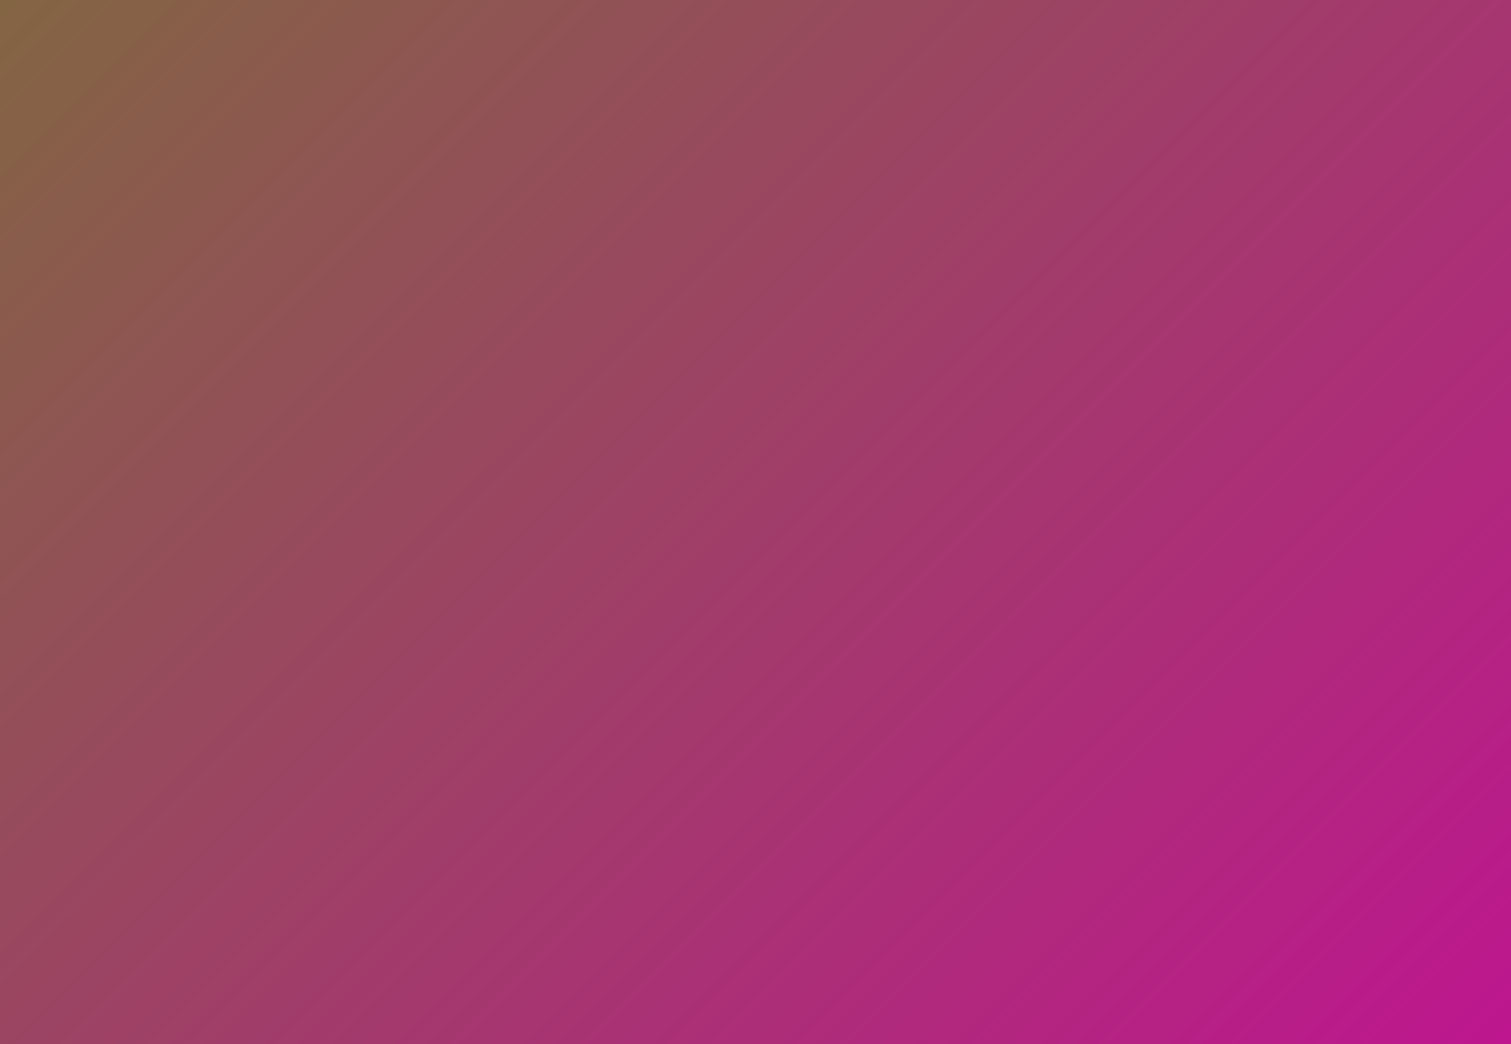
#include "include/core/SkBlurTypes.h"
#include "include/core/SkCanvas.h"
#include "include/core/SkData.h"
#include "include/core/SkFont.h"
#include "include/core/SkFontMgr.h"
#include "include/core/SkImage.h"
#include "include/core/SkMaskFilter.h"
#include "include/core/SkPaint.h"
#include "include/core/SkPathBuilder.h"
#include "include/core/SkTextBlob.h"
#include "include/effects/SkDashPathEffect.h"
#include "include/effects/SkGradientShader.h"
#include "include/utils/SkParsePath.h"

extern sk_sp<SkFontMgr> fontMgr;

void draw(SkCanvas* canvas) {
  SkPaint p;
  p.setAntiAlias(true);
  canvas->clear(SK_ColorWHITE);
  {
    const SkColor colors[] = {SkColorSetRGB(131, 101, 67), SkColorSetRGB(190, 22, 143)};
    const float stops[] = {0, 1};
    const SkPoint ends[] = {{117, -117}, {1394, 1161}};
    p.setShader(SkGradientShader::MakeLinear(ends, colors, stops, 2, SkTileMode::kClamp));
    p.setAlpha(255);
  }
  canvas->drawRect(SkRect::MakeLTRB(0, 0, 1511, 1044), p);
}
